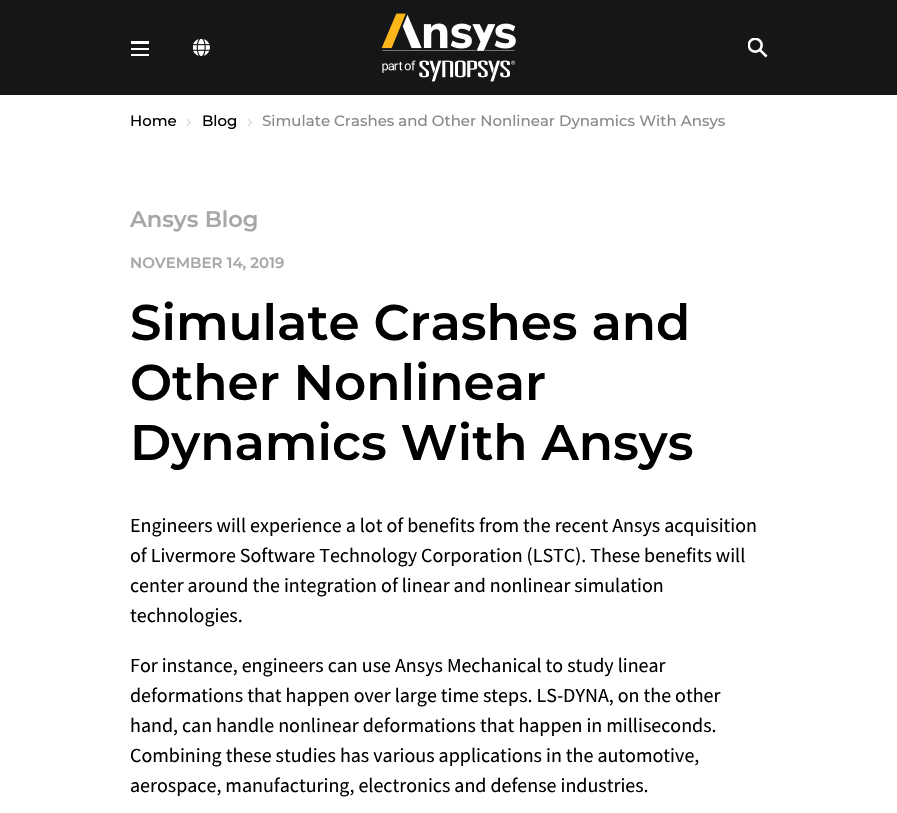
#include "include/core/SkBlurTypes.h"
#include "include/core/SkCanvas.h"
#include "include/core/SkData.h"
#include "include/core/SkFont.h"
#include "include/core/SkFontMgr.h"
#include "include/core/SkImage.h"
#include "include/core/SkMaskFilter.h"
#include "include/core/SkPaint.h"
#include "include/core/SkPathBuilder.h"
#include "include/core/SkTextBlob.h"
#include "include/effects/SkDashPathEffect.h"
#include "include/effects/SkGradientShader.h"
#include "include/utils/SkParsePath.h"

extern sk_sp<SkFontMgr> fontMgr;

void draw(SkCanvas* canvas) {
  SkPaint p;
  p.setAntiAlias(true);
  canvas->clear(SK_ColorWHITE);
  p.setColor(SkColorSetRGB(21, 22, 23));
  canvas->drawRect(SkRect::MakeLTRB(0, 0, 897, 95), p);
  p.setColor(SK_ColorWHITE);
  canvas->drawRect(SkRect::MakeLTRB(131, 41, 149, 44), p);
  canvas->drawRect(SkRect::MakeLTRB(131, 48, 149, 50), p);
  canvas->drawRect(SkRect::MakeLTRB(131, 54, 149, 56), p);
  canvas->drawImageRect(SkImages::DeferredFromEncodedData(SkData::MakeFromFileName("images/1.png")), SkRect::MakeLTRB(193, 39, 210, 56), SkSamplingOptions());
  canvas->drawImageRect(SkImages::DeferredFromEncodedData(SkData::MakeFromFileName("images/2.png")), SkRect::MakeLTRB(381, 13, 516, 82), SkSamplingOptions());
  canvas->drawImageRect(SkImages::DeferredFromEncodedData(SkData::MakeFromFileName("images/3.png")), SkRect::MakeLTRB(748, 38, 768, 58), SkSamplingOptions());
  canvas->drawImageRect(SkImages::DeferredFromEncodedData(SkData::MakeFromFileName("images/4.png")), SkRect::MakeLTRB(186, 119, 191, 126), SkSamplingOptions());
  canvas->drawImageRect(SkImages::DeferredFromEncodedData(SkData::MakeFromFileName("images/5.png")), SkRect::MakeLTRB(248, 119, 252, 126), SkSamplingOptions());
  SkFont font1(fontMgr->matchFamilyStyle("Montserrat", SkFontStyle(500, SkFontStyle::kNormal_Width, SkFontStyle::kUpright_Slant)), 15);
  font1.setSubpixel(true);
  p.setColor(SK_ColorBLACK);
  canvas->drawString("Home", 130, 126, font1, p);
  canvas->drawString("Blog", 202, 126, font1, p);
  p.setColor(SkColorSetRGB(137, 138, 141));
  canvas->drawString("Simulate Crashes and Other Nonlinear Dynamics With Ansys", 262, 126, font1, p);
  SkFont font2(fontMgr->matchFamilyStyle("Montserrat", SkFontStyle(600, SkFontStyle::kNormal_Width, SkFontStyle::kUpright_Slant)), 22.5f);
  font2.setSubpixel(true);
  p.setColor(SkColorSetRGB(167, 167, 170));
  canvas->drawString("Ansys Blog", 130, 227, font2, p);
  SkFont font3(fontMgr->matchFamilyStyle("Montserrat", SkFontStyle(600, SkFontStyle::kNormal_Width, SkFontStyle::kUpright_Slant)), 15);
  font3.setSubpixel(true);
  canvas->drawString("NOVEMBER 14, 2019", 130, 268, font3, p);
  SkFont font4(fontMgr->matchFamilyStyle("Montserrat", SkFontStyle(600, SkFontStyle::kNormal_Width, SkFontStyle::kUpright_Slant)), 50);
  font4.setSubpixel(true);
  p.setColor(SK_ColorBLACK);
  canvas->drawString("Simulate Crashes and", 130, 340, font4, p);
  canvas->drawString("Other Nonlinear", 130, 400, font4, p);
  canvas->drawString("Dynamics With Ansys", 130, 460, font4, p);
  SkFont font5(fontMgr->matchFamilyStyle("Source Sans Pro", SkFontStyle::Normal()), 20);
  font5.setSubpixel(true);
  canvas->drawString("Engineers will experience a lot of benefits from the recent Ansys acquisition", 130, 532, font5, p);
  canvas->drawString("of Livermore Software Technology Corporation (LSTC). These benefits will", 130, 562, font5, p);
  canvas->drawString("center around the integration of linear and nonlinear simulation", 130, 592, font5, p);
  canvas->drawString("technologies.", 130, 622, font5, p);
  canvas->drawString("For instance, engineers can use Ansys Mechanical to study linear", 130, 672, font5, p);
  canvas->drawString("deformations that happen over large time steps. LS-DYNA, on the other", 130, 702, font5, p);
  canvas->drawString("hand, can handle nonlinear deformations that happen in milliseconds.", 130, 732, font5, p);
  canvas->drawString("Combining these studies has various applications in the automotive,", 130, 762, font5, p);
  canvas->drawString("aerospace, manufacturing, electronics and defense industries.", 130, 792, font5, p);
}
